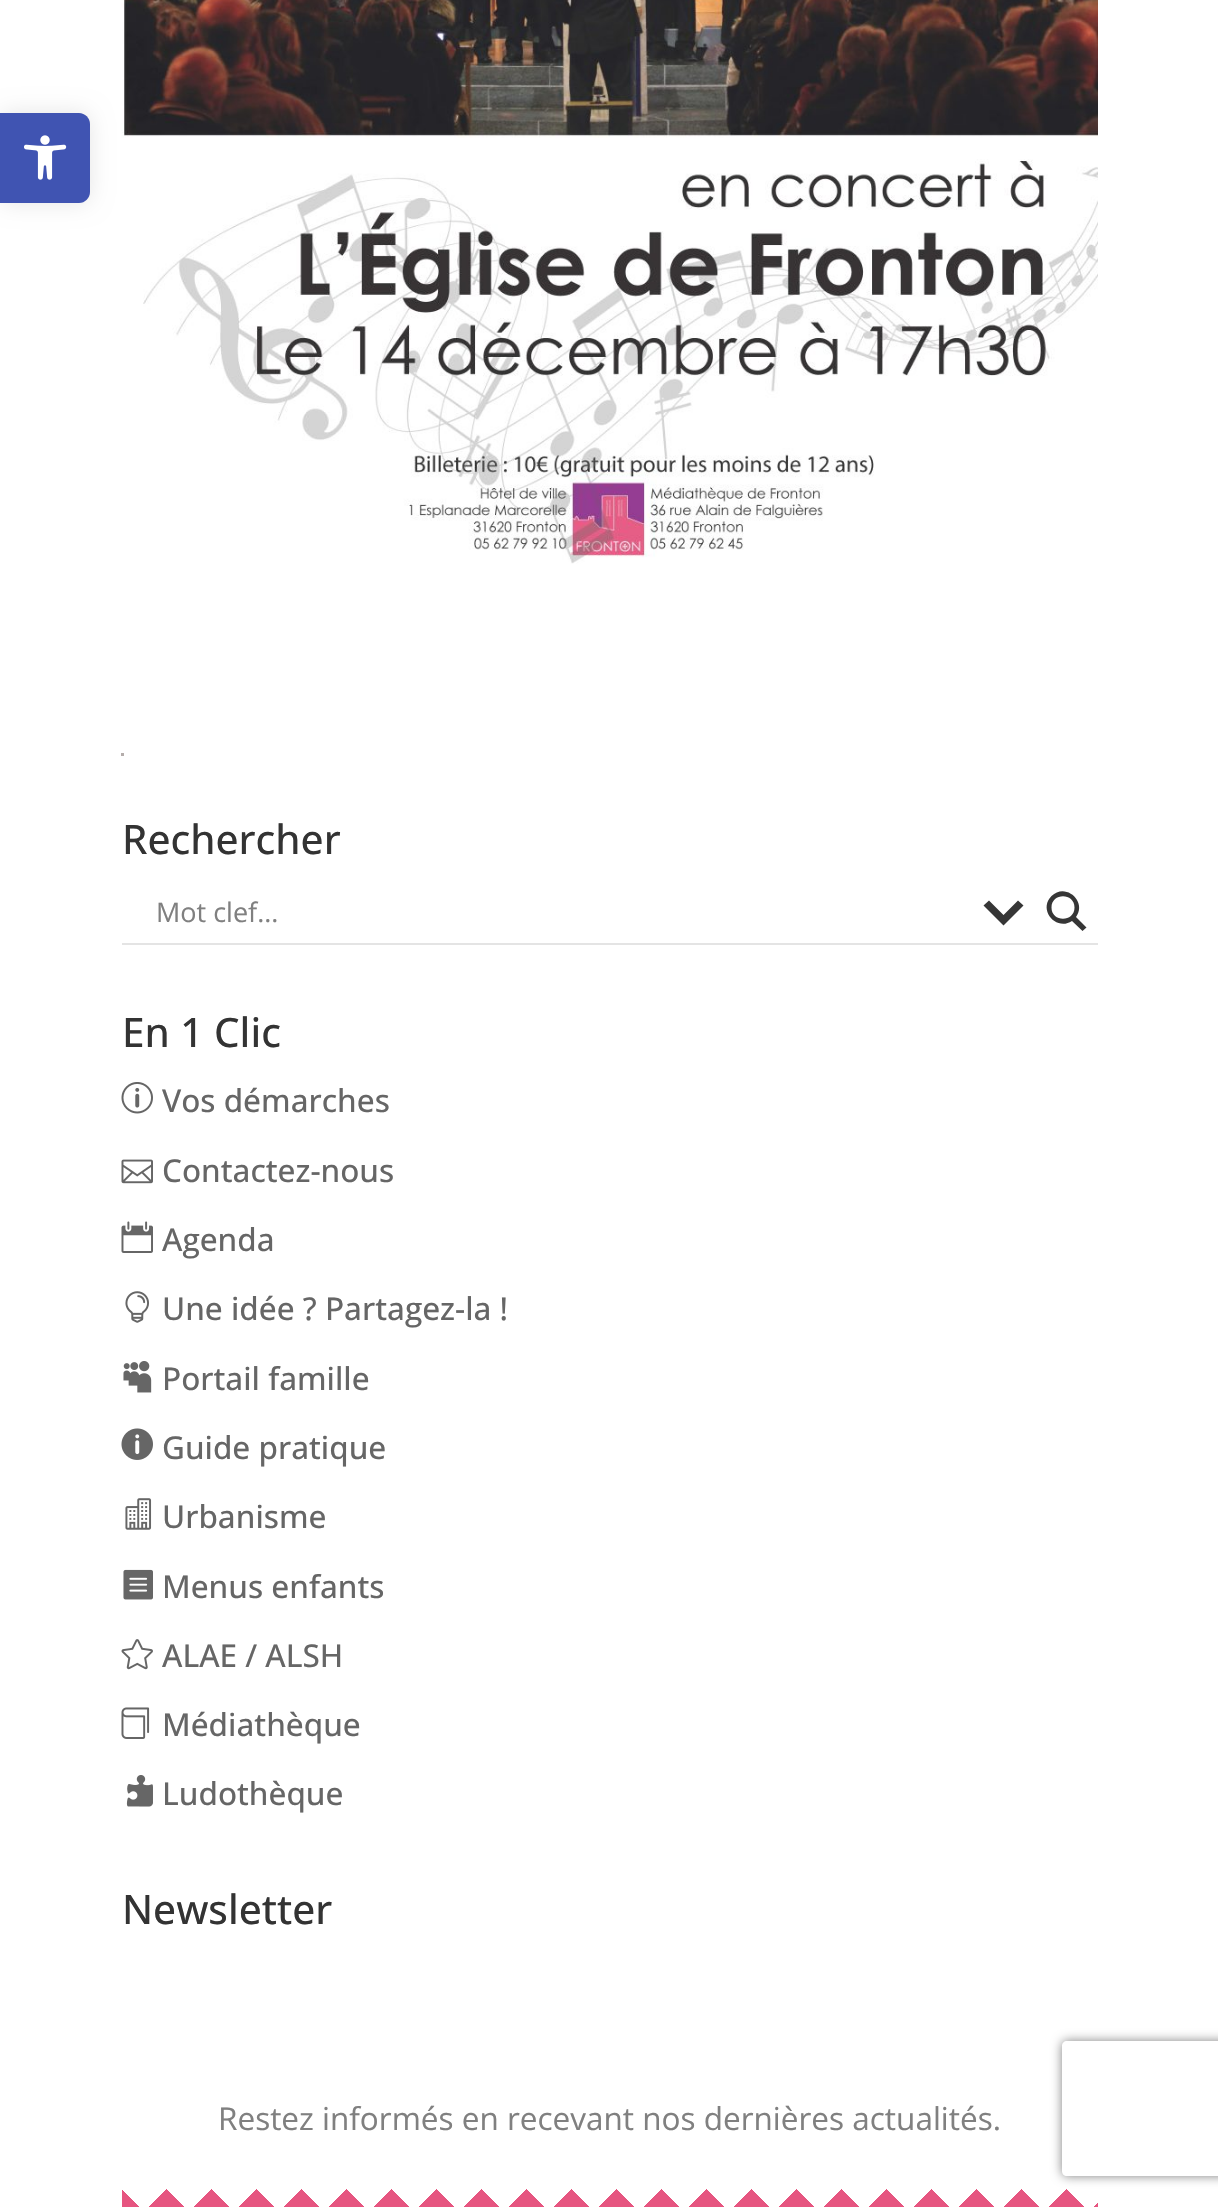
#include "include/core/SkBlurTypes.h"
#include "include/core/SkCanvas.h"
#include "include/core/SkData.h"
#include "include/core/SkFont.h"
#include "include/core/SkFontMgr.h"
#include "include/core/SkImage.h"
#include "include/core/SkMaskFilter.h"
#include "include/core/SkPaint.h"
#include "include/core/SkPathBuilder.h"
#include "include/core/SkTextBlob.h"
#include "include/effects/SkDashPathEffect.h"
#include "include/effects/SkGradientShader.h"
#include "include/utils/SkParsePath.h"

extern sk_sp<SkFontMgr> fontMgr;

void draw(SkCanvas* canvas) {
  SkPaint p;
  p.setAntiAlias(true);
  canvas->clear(SK_ColorWHITE);
  canvas->drawImageRect(SkImages::DeferredFromEncodedData(SkData::MakeFromFileName("images/2.png")), SkRect::MakeLTRB(121, 0, 1098, 564), SkSamplingOptions());
  p.setColor(SkColorSetARGB(26, 0, 0, 0));
  p.setMaskFilter(SkMaskFilter::MakeBlur(kNormal_SkBlurStyle, 11));
  canvas->drawRoundRect(SkRect::MakeLTRB(0, 113, 90, 203), 11, 11, p);
  p.setMaskFilter(nullptr);
  p.setColor(SkColorSetRGB(64, 84, 178));
  canvas->drawPath(SkPathBuilder().moveTo(0, 113).lineTo(79, 113).cubicTo(85, 113, 90, 118, 90, 124).lineTo(90, 192).cubicTo(90, 198, 85, 203, 79, 203).lineTo(0, 203).close().detach(), p);
  canvas->drawImageRect(SkImages::DeferredFromEncodedData(SkData::MakeFromFileName("images/1.png")), SkRect::MakeLTRB(24, 135, 67, 180), SkSamplingOptions());
  p.setColor(SkColorSetRGB(180, 173, 171));
  canvas->drawRect(SkRect::MakeLTRB(121, 753, 124, 756), p);
  p.setColor(SkColorSetRGB(228, 228, 228));
  canvas->drawRect(SkRect::MakeLTRB(122, 943, 1098, 945), p);
  p.setColor(SkColorSetRGB(54, 54, 54));
  canvas->drawPath(SkPathBuilder().moveTo(1018, 900.5f).lineTo(1023.5f, 905.5f).lineTo(1003.5f, 925.5f).lineTo(983.5f, 905.5f).lineTo(989, 900.5f).lineTo(1003.5f, 915).close().detach(), p);
  canvas->drawPath(SkPathBuilder().moveTo(1086.5f, 927.5f).lineTo(1076, 917).cubicTo(1087.5f, 901.5f, 1065.5f, 882, 1051.5f, 896).cubicTo(1037.5f, 910, 1056.5f, 931.5f, 1072, 921).lineTo(1082.5f, 931).close().moveTo(1051.5f, 907.5f).cubicTo(1051.5f, 892.5f, 1074.5f, 892.5f, 1074.5f, 907.5f).cubicTo(1074.5f, 922.5f, 1051.5f, 922.5f, 1051.5f, 907.5f).close().detach(), p);
  canvas->drawImageRect(SkImages::DeferredFromEncodedData(SkData::MakeFromFileName("images/3.png")), SkRect::MakeLTRB(121, 1082, 153, 1114), SkSamplingOptions());
  canvas->drawImageRect(SkImages::DeferredFromEncodedData(SkData::MakeFromFileName("images/4.png")), SkRect::MakeLTRB(121, 1159, 153, 1184), SkSamplingOptions());
  canvas->drawImageRect(SkImages::DeferredFromEncodedData(SkData::MakeFromFileName("images/5.png")), SkRect::MakeLTRB(121, 1221, 153, 1253), SkSamplingOptions());
  canvas->drawImageRect(SkImages::DeferredFromEncodedData(SkData::MakeFromFileName("images/6.png")), SkRect::MakeLTRB(125, 1291, 149, 1323), SkSamplingOptions());
  canvas->drawImageRect(SkImages::DeferredFromEncodedData(SkData::MakeFromFileName("images/7.png")), SkRect::MakeLTRB(123, 1361, 152, 1393), SkSamplingOptions());
  canvas->drawImageRect(SkImages::DeferredFromEncodedData(SkData::MakeFromFileName("images/8.png")), SkRect::MakeLTRB(121, 1428, 153, 1460), SkSamplingOptions());
  canvas->drawImageRect(SkImages::DeferredFromEncodedData(SkData::MakeFromFileName("images/9.png")), SkRect::MakeLTRB(125, 1498, 152, 1530), SkSamplingOptions());
  canvas->drawImageRect(SkImages::DeferredFromEncodedData(SkData::MakeFromFileName("images/10.png")), SkRect::MakeLTRB(123, 1569, 153, 1600), SkSamplingOptions());
  canvas->drawImageRect(SkImages::DeferredFromEncodedData(SkData::MakeFromFileName("images/11.png")), SkRect::MakeLTRB(121, 1639, 153, 1670), SkSamplingOptions());
  canvas->drawImageRect(SkImages::DeferredFromEncodedData(SkData::MakeFromFileName("images/12.png")), SkRect::MakeLTRB(121, 1707, 150, 1739), SkSamplingOptions());
  canvas->drawImageRect(SkImages::DeferredFromEncodedData(SkData::MakeFromFileName("images/13.png")), SkRect::MakeLTRB(126, 1775, 153, 1807), SkSamplingOptions());
  canvas->drawImageRect(SkImages::DeferredFromEncodedData(SkData::MakeFromFileName("images/14.png")), SkRect::MakeLTRB(149, 2189, 1098, 2207), SkSamplingOptions());
  canvas->drawImageRect(SkImages::DeferredFromEncodedData(SkData::MakeFromFileName("images/15.png")), SkRect::MakeLTRB(122, 2190, 1084, 2207), SkSamplingOptions());
  canvas->save();
  canvas->clipPath(SkPathBuilder(SkPathFillType::kEvenOdd).moveTo(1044, 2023).lineTo(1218, 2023).lineTo(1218, 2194).lineTo(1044, 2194).close().moveTo(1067, 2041).lineTo(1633, 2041).cubicTo(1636, 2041, 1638, 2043, 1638, 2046).lineTo(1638, 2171).cubicTo(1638, 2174, 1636, 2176, 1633, 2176).lineTo(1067, 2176).cubicTo(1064, 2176, 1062, 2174, 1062, 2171).lineTo(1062, 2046).cubicTo(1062, 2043, 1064, 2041, 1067, 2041).close().detach(), true);
  p.setColor(SkColorSetRGB(128, 128, 128));
  p.setMaskFilter(SkMaskFilter::MakeBlur(kNormal_SkBlurStyle, 5.5f));
  canvas->drawRoundRect(SkRect::MakeLTRB(1062, 2041, 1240, 2176), 5, 5, p);
  p.setMaskFilter(nullptr);
  canvas->restore();
  SkFont font1(fontMgr->matchFamilyStyle("Open Sans", SkFontStyle(500, SkFontStyle::kNormal_Width, SkFontStyle::kUpright_Slant)), 40.5f);
  font1.setSubpixel(true);
  p.setColor(SkColorSetRGB(51, 51, 51));
  canvas->drawString("Rechercher", 122, 854, font1, p);
  SkFont font2(fontMgr->matchFamilyStyle("Open Sans", SkFontStyle::Normal()), 27);
  font2.setSubpixel(true);
  p.setColor(SkColorSetRGB(128, 128, 128));
  canvas->drawString("Mot clef...", 156, 922, font2, p);
  p.setColor(SkColorSetRGB(51, 51, 51));
  canvas->drawString("En 1 Clic", 122, 1047, font1, p);
  SkFont font3(fontMgr->matchFamilyStyle("Open Sans", SkFontStyle(500, SkFontStyle::kNormal_Width, SkFontStyle::kUpright_Slant)), 31.5f);
  font3.setSubpixel(true);
  p.setColor(SkColorSetRGB(102, 102, 102));
  canvas->drawString("Vos démarches", 162, 1112, font3, p);
  canvas->drawString("Contactez-nous", 162, 1182, font3, p);
  canvas->drawString("Agenda", 162, 1251, font3, p);
  canvas->drawString("Une idée ? Partagez-la !", 162, 1320, font3, p);
  canvas->drawString("Portail famille", 162, 1390, font3, p);
  canvas->drawString("Guide pratique", 162, 1459, font3, p);
  canvas->drawString("Urbanisme", 162, 1528, font3, p);
  canvas->drawString("Menus enfants", 162, 1598, font3, p);
  canvas->drawString("ALAE / ALSH", 162, 1667, font3, p);
  canvas->drawString("Médiathèque", 162, 1736, font3, p);
  canvas->drawString("Ludothèque", 162, 1805, font3, p);
  p.setColor(SkColorSetRGB(51, 51, 51));
  canvas->drawString("Newsletter", 122, 1924, font1, p);
  SkFont font4(fontMgr->matchFamilyStyle("Open Sans", SkFontStyle::Normal()), 31.5f);
  font4.setSubpixel(true);
  p.setColor(SkColorSetRGB(128, 128, 128));
  canvas->drawString("Restez informés en recevant nos dernières actualités.", 218, 2130, font4, p);
}
